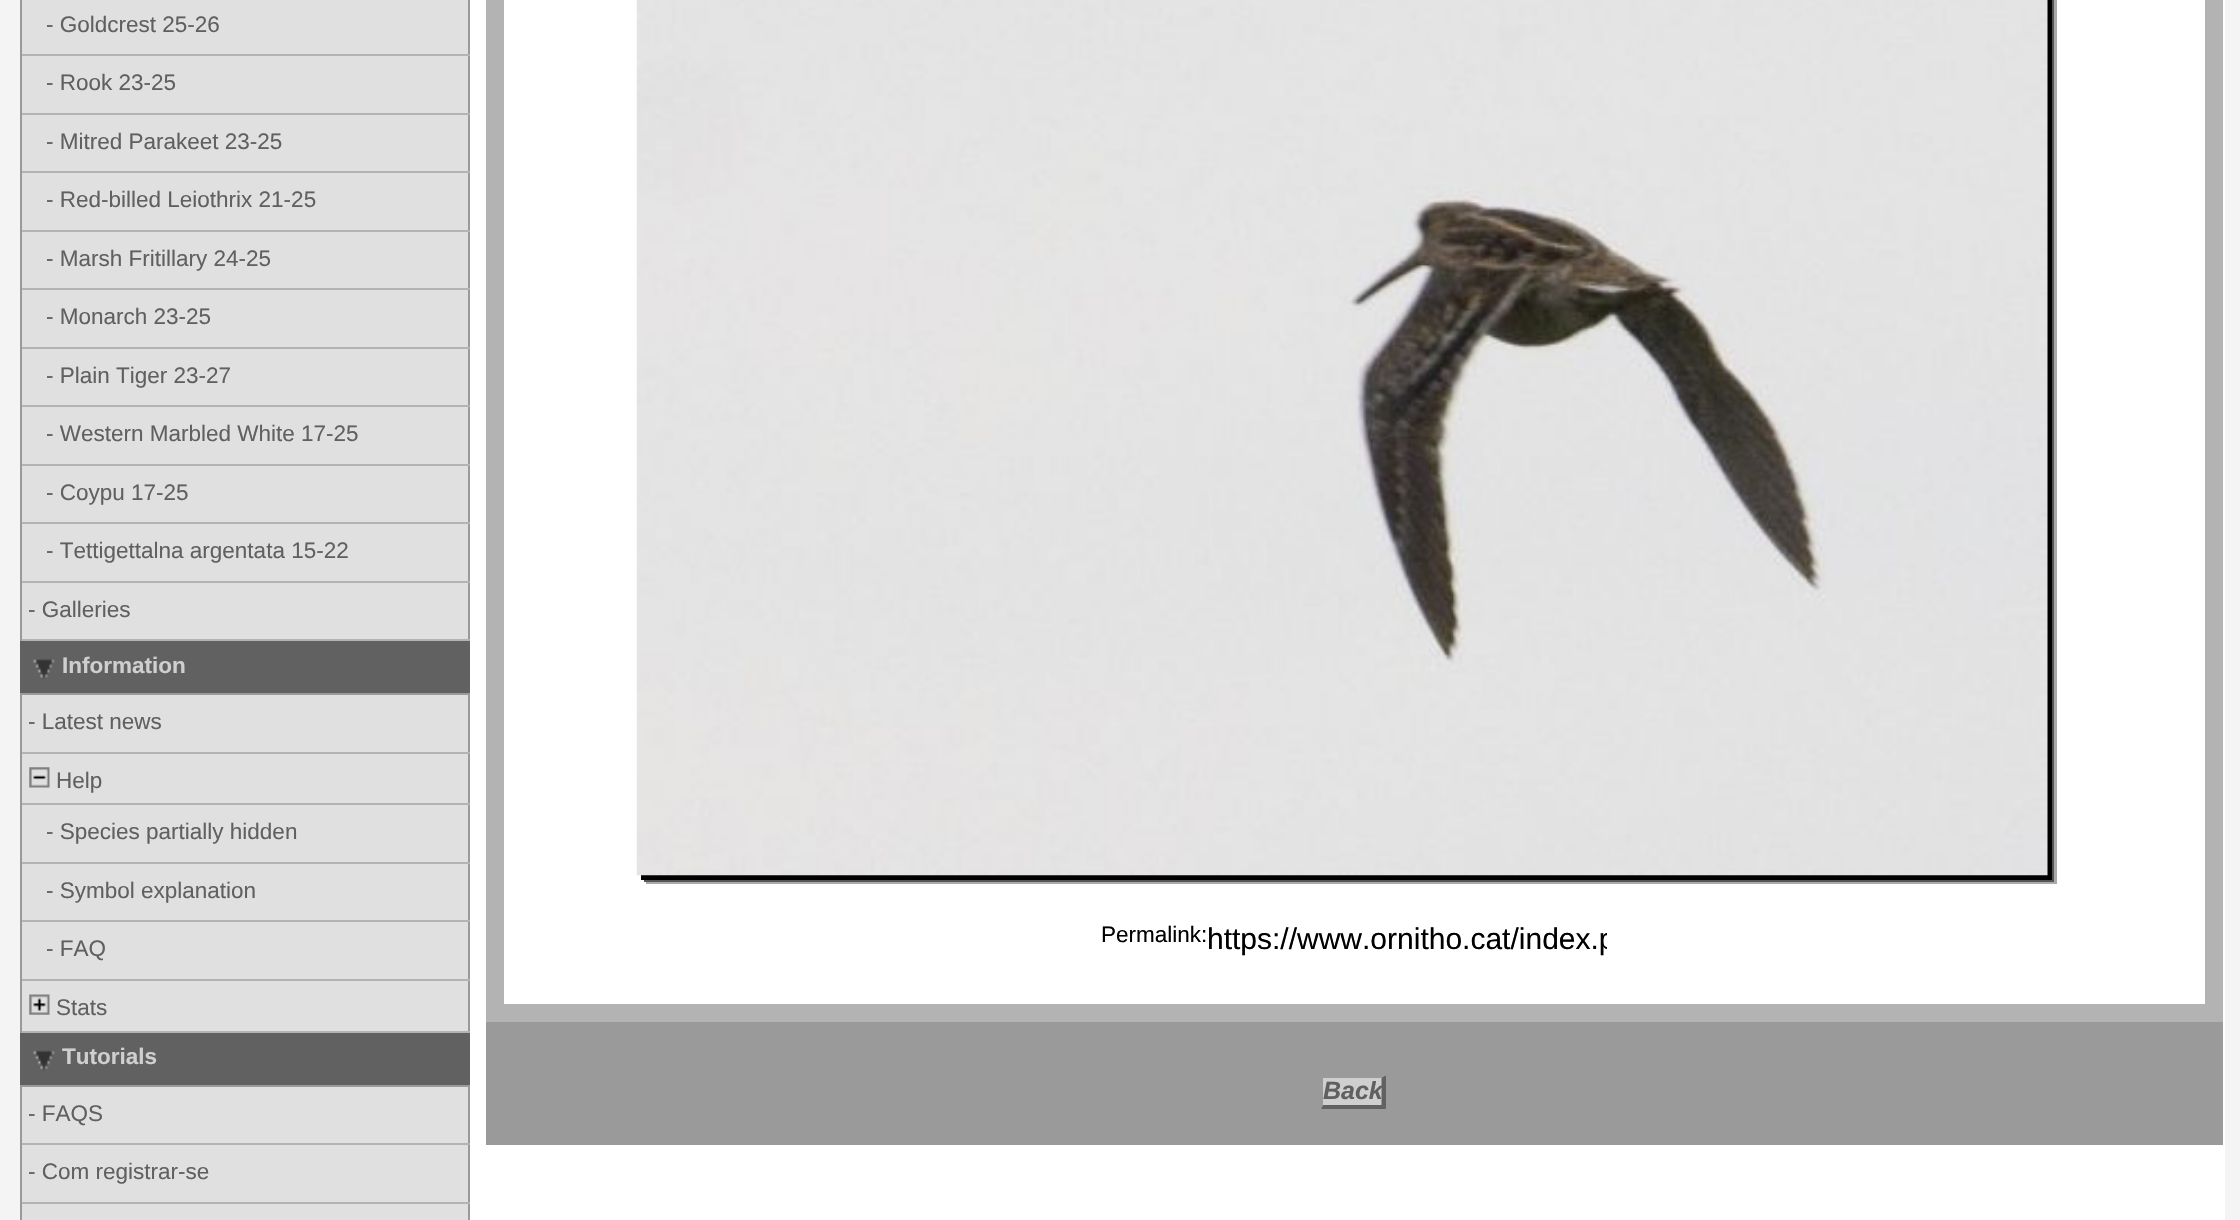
#include "include/core/SkBlurTypes.h"
#include "include/core/SkCanvas.h"
#include "include/core/SkData.h"
#include "include/core/SkFont.h"
#include "include/core/SkFontMgr.h"
#include "include/core/SkImage.h"
#include "include/core/SkMaskFilter.h"
#include "include/core/SkPaint.h"
#include "include/core/SkPathBuilder.h"
#include "include/core/SkTextBlob.h"
#include "include/effects/SkDashPathEffect.h"
#include "include/effects/SkGradientShader.h"
#include "include/utils/SkParsePath.h"

extern sk_sp<SkFontMgr> fontMgr;

void draw(SkCanvas* canvas) {
  SkPaint p;
  p.setAntiAlias(true);
  canvas->clear(SkColorSetRGB(244, 244, 244));
  p.setColor(SK_ColorWHITE);
  canvas->drawRect(SkRect::MakeLTRB(470, 0, 2225, 1220), p);
  p.setColor(SkColorSetRGB(224, 224, 224));
  canvas->drawRect(SkRect::MakeLTRB(22, 0, 468, 54), p);
  p.setColor(SkColorSetRGB(154, 154, 154));
  canvas->drawRect(SkRect::MakeLTRB(468, 0, 470, 641), p);
  p.setColor(SkColorSetRGB(179, 179, 179));
  canvas->drawRect(SkRect::MakeLTRB(20, 54, 470, 56), p);
  p.setColor(SkColorSetRGB(154, 154, 154));
  canvas->drawRect(SkRect::MakeLTRB(20, 0, 22, 56), p);
  p.setColor(SkColorSetRGB(224, 224, 224));
  canvas->drawRect(SkRect::MakeLTRB(22, 56, 468, 113), p);
  p.setColor(SkColorSetRGB(179, 179, 179));
  canvas->drawRect(SkRect::MakeLTRB(20, 113, 470, 115), p);
  p.setColor(SkColorSetRGB(154, 154, 154));
  canvas->drawRect(SkRect::MakeLTRB(20, 56, 22, 115), p);
  p.setColor(SkColorSetRGB(224, 224, 224));
  canvas->drawRect(SkRect::MakeLTRB(22, 115, 468, 171), p);
  p.setColor(SkColorSetRGB(179, 179, 179));
  canvas->drawRect(SkRect::MakeLTRB(20, 171, 470, 173), p);
  p.setColor(SkColorSetRGB(154, 154, 154));
  canvas->drawRect(SkRect::MakeLTRB(20, 115, 22, 173), p);
  p.setColor(SkColorSetRGB(224, 224, 224));
  canvas->drawRect(SkRect::MakeLTRB(22, 173, 468, 230), p);
  p.setColor(SkColorSetRGB(179, 179, 179));
  canvas->drawRect(SkRect::MakeLTRB(20, 230, 470, 232), p);
  p.setColor(SkColorSetRGB(154, 154, 154));
  canvas->drawRect(SkRect::MakeLTRB(20, 173, 22, 232), p);
  p.setColor(SkColorSetRGB(224, 224, 224));
  canvas->drawRect(SkRect::MakeLTRB(22, 232, 468, 288), p);
  p.setColor(SkColorSetRGB(179, 179, 179));
  canvas->drawRect(SkRect::MakeLTRB(20, 288, 470, 290), p);
  p.setColor(SkColorSetRGB(154, 154, 154));
  canvas->drawRect(SkRect::MakeLTRB(20, 232, 22, 290), p);
  p.setColor(SkColorSetRGB(224, 224, 224));
  canvas->drawRect(SkRect::MakeLTRB(22, 290, 468, 347), p);
  p.setColor(SkColorSetRGB(179, 179, 179));
  canvas->drawRect(SkRect::MakeLTRB(20, 347, 470, 349), p);
  p.setColor(SkColorSetRGB(154, 154, 154));
  canvas->drawRect(SkRect::MakeLTRB(20, 290, 22, 349), p);
  p.setColor(SkColorSetRGB(224, 224, 224));
  canvas->drawRect(SkRect::MakeLTRB(22, 349, 468, 405), p);
  p.setColor(SkColorSetRGB(179, 179, 179));
  canvas->drawRect(SkRect::MakeLTRB(20, 405, 470, 407), p);
  p.setColor(SkColorSetRGB(154, 154, 154));
  canvas->drawRect(SkRect::MakeLTRB(20, 349, 22, 407), p);
  p.setColor(SkColorSetRGB(224, 224, 224));
  canvas->drawRect(SkRect::MakeLTRB(22, 407, 468, 464), p);
  p.setColor(SkColorSetRGB(179, 179, 179));
  canvas->drawRect(SkRect::MakeLTRB(20, 464, 470, 466), p);
  p.setColor(SkColorSetRGB(154, 154, 154));
  canvas->drawRect(SkRect::MakeLTRB(20, 407, 22, 466), p);
  p.setColor(SkColorSetRGB(224, 224, 224));
  canvas->drawRect(SkRect::MakeLTRB(22, 466, 468, 522), p);
  p.setColor(SkColorSetRGB(179, 179, 179));
  canvas->drawRect(SkRect::MakeLTRB(20, 522, 470, 524), p);
  p.setColor(SkColorSetRGB(154, 154, 154));
  canvas->drawRect(SkRect::MakeLTRB(20, 466, 22, 524), p);
  p.setColor(SkColorSetRGB(224, 224, 224));
  canvas->drawRect(SkRect::MakeLTRB(22, 524, 468, 581), p);
  p.setColor(SkColorSetRGB(179, 179, 179));
  canvas->drawRect(SkRect::MakeLTRB(20, 581, 470, 583), p);
  p.setColor(SkColorSetRGB(154, 154, 154));
  canvas->drawRect(SkRect::MakeLTRB(20, 524, 22, 583), p);
  p.setColor(SkColorSetRGB(224, 224, 224));
  canvas->drawRect(SkRect::MakeLTRB(22, 583, 468, 639), p);
  p.setColor(SkColorSetRGB(179, 179, 179));
  canvas->drawRect(SkRect::MakeLTRB(20, 639, 470, 641), p);
  p.setColor(SkColorSetRGB(154, 154, 154));
  canvas->drawRect(SkRect::MakeLTRB(20, 583, 22, 641), p);
  p.setColor(SkColorSetRGB(97, 97, 97));
  canvas->drawRect(SkRect::MakeLTRB(20, 641, 470, 693), p);
  p.setColor(SkColorSetRGB(154, 154, 154));
  canvas->drawRect(SkRect::MakeLTRB(20, 693, 470, 695), p);
  canvas->drawImageRect(SkImages::DeferredFromEncodedData(SkData::MakeFromFileName("images/1.png")), SkRect::MakeLTRB(33, 659, 55, 679), SkSamplingOptions());
  p.setColor(SkColorSetRGB(224, 224, 224));
  canvas->drawRect(SkRect::MakeLTRB(22, 695, 468, 752), p);
  p.setColor(SkColorSetRGB(154, 154, 154));
  canvas->drawRect(SkRect::MakeLTRB(468, 695, 470, 1033), p);
  p.setColor(SkColorSetRGB(179, 179, 179));
  canvas->drawRect(SkRect::MakeLTRB(20, 752, 470, 754), p);
  p.setColor(SkColorSetRGB(154, 154, 154));
  canvas->drawRect(SkRect::MakeLTRB(20, 695, 22, 754), p);
  p.setColor(SkColorSetRGB(224, 224, 224));
  canvas->drawRect(SkRect::MakeLTRB(22, 754, 468, 862), p);
  p.setColor(SkColorSetRGB(179, 179, 179));
  canvas->drawRect(SkRect::MakeLTRB(20, 803, 470, 805), p);
  p.setColor(SkColorSetRGB(154, 154, 154));
  canvas->drawRect(SkRect::MakeLTRB(20, 754, 22, 806), p);
  canvas->drawImageRect(SkImages::DeferredFromEncodedData(SkData::MakeFromFileName("images/2.png")), SkRect::MakeLTRB(29, 767, 50, 788), SkSamplingOptions());
  p.setColor(SkColorSetRGB(179, 179, 179));
  canvas->drawRect(SkRect::MakeLTRB(20, 862, 470, 864), p);
  p.setColor(SkColorSetRGB(154, 154, 154));
  canvas->drawRect(SkRect::MakeLTRB(20, 806, 22, 864), p);
  p.setColor(SkColorSetRGB(224, 224, 224));
  canvas->drawRect(SkRect::MakeLTRB(22, 864, 468, 979), p);
  p.setColor(SkColorSetRGB(179, 179, 179));
  canvas->drawRect(SkRect::MakeLTRB(20, 920, 470, 922), p);
  p.setColor(SkColorSetRGB(154, 154, 154));
  canvas->drawRect(SkRect::MakeLTRB(20, 864, 22, 923), p);
  p.setColor(SkColorSetRGB(179, 179, 179));
  canvas->drawRect(SkRect::MakeLTRB(20, 979, 470, 981), p);
  p.setColor(SkColorSetRGB(154, 154, 154));
  canvas->drawRect(SkRect::MakeLTRB(20, 923, 22, 981), p);
  p.setColor(SkColorSetRGB(224, 224, 224));
  canvas->drawRect(SkRect::MakeLTRB(22, 981, 468, 1031), p);
  p.setColor(SkColorSetRGB(179, 179, 179));
  canvas->drawRect(SkRect::MakeLTRB(20, 1031, 470, 1033), p);
  p.setColor(SkColorSetRGB(154, 154, 154));
  canvas->drawRect(SkRect::MakeLTRB(20, 981, 22, 1033), p);
  canvas->drawImageRect(SkImages::DeferredFromEncodedData(SkData::MakeFromFileName("images/3.png")), SkRect::MakeLTRB(29, 994, 50, 1015), SkSamplingOptions());
  p.setColor(SkColorSetRGB(97, 97, 97));
  canvas->drawRect(SkRect::MakeLTRB(20, 1033, 470, 1085), p);
  p.setColor(SkColorSetRGB(154, 154, 154));
  canvas->drawRect(SkRect::MakeLTRB(20, 1085, 470, 1087), p);
  canvas->drawImageRect(SkImages::DeferredFromEncodedData(SkData::MakeFromFileName("images/4.png")), SkRect::MakeLTRB(33, 1050, 55, 1071), SkSamplingOptions());
  p.setColor(SkColorSetRGB(224, 224, 224));
  canvas->drawRect(SkRect::MakeLTRB(22, 1087, 468, 1143), p);
  p.setColor(SkColorSetRGB(154, 154, 154));
  canvas->drawRect(SkRect::MakeLTRB(468, 1087, 470, 1220), p);
  p.setColor(SkColorSetRGB(179, 179, 179));
  canvas->drawRect(SkRect::MakeLTRB(20, 1143, 470, 1145), p);
  p.setColor(SkColorSetRGB(154, 154, 154));
  canvas->drawRect(SkRect::MakeLTRB(20, 1087, 22, 1145), p);
  p.setColor(SkColorSetRGB(224, 224, 224));
  canvas->drawRect(SkRect::MakeLTRB(22, 1145, 468, 1202), p);
  p.setColor(SkColorSetRGB(179, 179, 179));
  canvas->drawRect(SkRect::MakeLTRB(20, 1202, 470, 1204), p);
  p.setColor(SkColorSetRGB(154, 154, 154));
  canvas->drawRect(SkRect::MakeLTRB(20, 1145, 22, 1220), p);
  p.setColor(SkColorSetRGB(224, 224, 224));
  canvas->drawRect(SkRect::MakeLTRB(22, 1204, 468, 1220), p);
  p.setColor(SkColorSetRGB(154, 154, 154));
  canvas->drawRect(SkRect::MakeLTRB(486, 1022, 2223, 1145), p);
  p.setColor(SkColorSetRGB(179, 179, 179));
  canvas->drawRect(SkRect::MakeLTRB(486, 0, 2223, 1022), p);
  p.setColor(SK_ColorWHITE);
  canvas->drawRect(SkRect::MakeLTRB(504, 0, 2205, 1004), p);
  p.setColor(SkColorSetRGB(170, 170, 170));
  canvas->drawRect(SkRect::MakeLTRB(646, 0, 2057, 884), p);
  p.setColor(SkColorSetRGB(85, 85, 85));
  canvas->drawRect(SkRect::MakeLTRB(644, 0, 2054, 882), p);
  p.setColor(SK_ColorBLACK);
  canvas->drawRect(SkRect::MakeLTRB(641, 0, 2052, 880), p);
  canvas->drawImageRect(SkImages::DeferredFromEncodedData(SkData::MakeFromFileName("images/5.png")), SkRect::MakeLTRB(636, 0, 2048, 876), SkSamplingOptions());
  p.setColor(SkColorSetRGB(207, 207, 207));
  canvas->drawRect(SkRect::MakeLTRB(1323, 1078, 1382, 1105), p);
  p.setColor(SkColorSetRGB(97, 97, 97));
  canvas->drawPath(SkPathBuilder().moveTo(1386, 1075.5f).lineTo(1386, 1109).lineTo(1381.5f, 1105).lineTo(1381.5f, 1078).close().detach(), p);
  canvas->drawPath(SkPathBuilder().moveTo(1386, 1109).lineTo(1321, 1109).lineTo(1323, 1105).lineTo(1382, 1105).close().detach(), p);
  p.setColor(SkColorSetRGB(154, 154, 154));
  canvas->drawPath(SkPathBuilder().moveTo(1321, 1109).lineTo(1321, 1075.5f).lineTo(1323, 1078).lineTo(1323, 1105).close().detach(), p);
  SkFont font1(fontMgr->matchFamilyStyle("Liberation Sans", SkFontStyle::Normal()), 22.5f);
  font1.setSubpixel(true);
  p.setColor(SkColorSetRGB(96, 96, 96));
  canvas->drawString("- Goldcrest 25-26", 46, 32, font1, p);
  canvas->drawString("- Rook 23-25", 46, 90, font1, p);
  canvas->drawString("- Mitred Parakeet 23-25", 46, 149, font1, p);
  canvas->drawString("- Red-billed Leiothrix 21-25", 46, 207, font1, p);
  canvas->drawString("- Marsh Fritillary 24-25", 46, 266, font1, p);
  canvas->drawString("- Monarch 23-25", 46, 324, font1, p);
  canvas->drawString("- Plain Tiger 23-27", 46, 383, font1, p);
  canvas->drawString("- Western Marbled White 17-25", 46, 441, font1, p);
  canvas->drawString("- Coypu 17-25", 46, 500, font1, p);
  canvas->drawString("- Tettigettalna argentata 15-22", 46, 558, font1, p);
  canvas->drawString("- Galleries", 28, 617, font1, p);
  SkFont font2(fontMgr->matchFamilyStyle("Liberation Sans", SkFontStyle::Bold()), 22.5f);
  font2.setSubpixel(true);
  p.setColor(SkColorSetRGB(207, 207, 207));
  canvas->drawString("Information", 62, 673, font2, p);
  p.setColor(SkColorSetRGB(96, 96, 96));
  canvas->drawString("- Latest news", 28, 729, font1, p);
  canvas->drawString("Help", 56, 788, font1, p);
  canvas->drawString("- Species partially hidden", 46, 839, font1, p);
  canvas->drawString("- Symbol explanation", 46, 898, font1, p);
  canvas->drawString("- FAQ", 46, 956, font1, p);
  canvas->drawString("Stats", 56, 1015, font1, p);
  p.setColor(SkColorSetRGB(207, 207, 207));
  canvas->drawString("Tutorials", 62, 1064, font2, p);
  p.setColor(SkColorSetRGB(96, 96, 96));
  canvas->drawString("- FAQS", 28, 1121, font1, p);
  canvas->drawString("- Com registrar-se", 28, 1179, font1, p);
  p.setColor(SK_ColorBLACK);
  canvas->drawString("Permalink:", 1101, 942, font1, p);
  canvas->save();
  canvas->clipRect(SkRect::MakeLTRB(1208, 923, 1607, 956));
  SkFont font3(fontMgr->matchFamilyStyle("Liberation Sans", SkFontStyle::Normal()), 30);
  font3.setSubpixel(true);
  canvas->drawString("https://www.ornitho.cat/index.p", 1207, 949, font3, p);
  canvas->restore();
  SkFont font4(fontMgr->matchFamilyStyle("Liberation Sans", SkFontStyle::BoldItalic()), 25);
  font4.setSubpixel(true);
  p.setColor(SkColorSetRGB(96, 96, 96));
  canvas->drawString("Back", 1323, 1099, font4, p);
}
